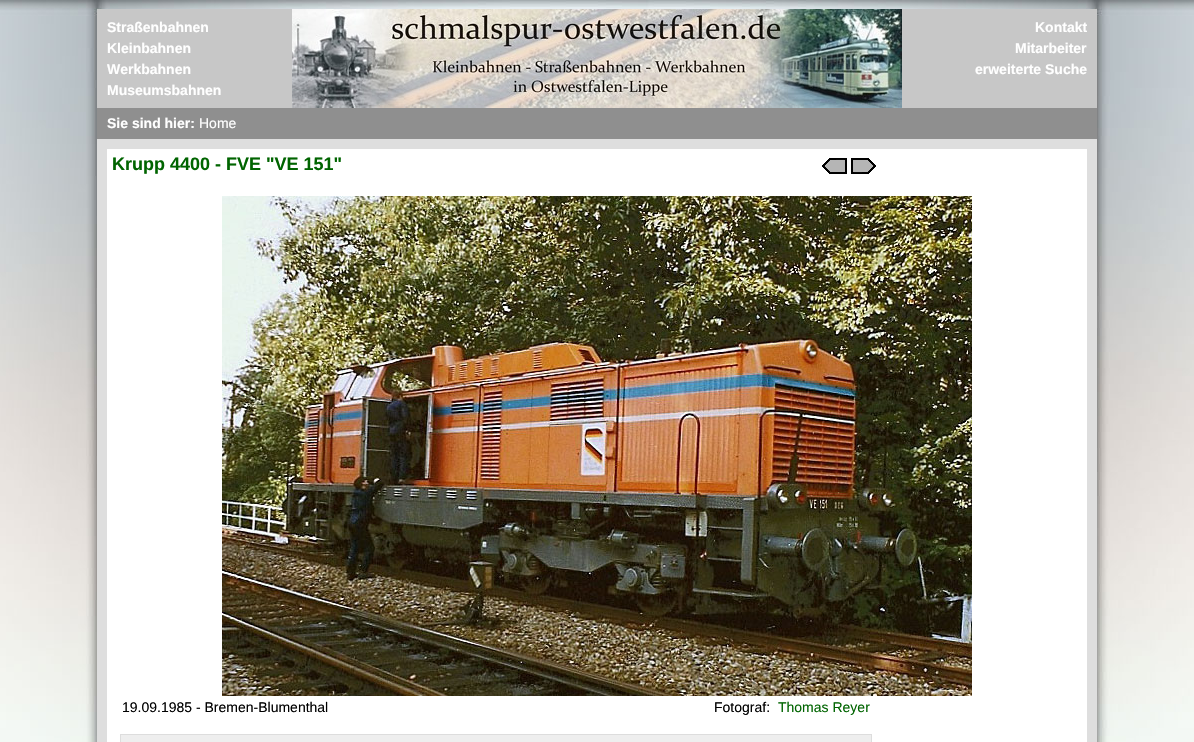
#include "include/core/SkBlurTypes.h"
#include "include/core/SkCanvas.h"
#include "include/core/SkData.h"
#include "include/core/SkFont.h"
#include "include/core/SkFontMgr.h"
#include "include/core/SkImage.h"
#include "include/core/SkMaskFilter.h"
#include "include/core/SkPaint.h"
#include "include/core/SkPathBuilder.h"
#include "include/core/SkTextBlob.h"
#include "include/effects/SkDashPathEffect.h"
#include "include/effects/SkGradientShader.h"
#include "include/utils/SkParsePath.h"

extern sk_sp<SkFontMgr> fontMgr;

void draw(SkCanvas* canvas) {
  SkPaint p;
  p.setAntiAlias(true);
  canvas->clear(SK_ColorWHITE);
  canvas->drawImageRect(SkImages::DeferredFromEncodedData(SkData::MakeFromFileName("images/1.png")), SkRect::MakeLTRB(0, 0, 1194, 742), SkSamplingOptions());
  p.setColor(SkColorSetRGB(222, 222, 222));
  canvas->drawRect(SkRect::MakeLTRB(97, 139, 1097, 742), p);
  p.setColor(SkColorSetRGB(143, 143, 143));
  canvas->drawRect(SkRect::MakeLTRB(97, 108, 1097, 139), p);
  p.setColor(SkColorSetRGB(199, 199, 199));
  canvas->drawRect(SkRect::MakeLTRB(97, 9, 292, 108), p);
  canvas->drawImageRect(SkImages::DeferredFromEncodedData(SkData::MakeFromFileName("images/2.png")), SkRect::MakeLTRB(292, 9, 902, 108), SkSamplingOptions());
  canvas->drawRect(SkRect::MakeLTRB(902, 9, 1097, 108), p);
  p.setColor(SK_ColorWHITE);
  canvas->drawRect(SkRect::MakeLTRB(107, 149, 1087, 742), p);
  canvas->drawImageRect(SkImages::DeferredFromEncodedData(SkData::MakeFromFileName("images/3.png")), SkRect::MakeLTRB(822, 158, 847, 174), SkSamplingOptions());
  canvas->drawImageRect(SkImages::DeferredFromEncodedData(SkData::MakeFromFileName("images/4.png")), SkRect::MakeLTRB(851, 158, 876, 174), SkSamplingOptions());
  canvas->drawImageRect(SkImages::DeferredFromEncodedData(SkData::MakeFromFileName("images/5.png")), SkRect::MakeLTRB(222, 196, 972, 696), SkSamplingOptions());
  p.setColor(SkColorSetRGB(238, 238, 238));
  canvas->drawRect(SkRect::MakeLTRB(120.5f, 734.5f, 871.5f, 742.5f), p);
  p.setStyle(SkPaint::kStroke_Style);
  p.setStrokeWidth(1);
  p.setColor(SkColorSetRGB(221, 221, 221));
  canvas->drawRect(SkRect::MakeLTRB(120.5f, 734.5f, 871.5f, 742.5f), p);
  SkFont font1(fontMgr->matchFamilyStyle("Liberation Sans", SkFontStyle::Bold()), 14);
  font1.setSubpixel(true);
  p.setStyle(SkPaint::kFill_Style);
  p.setColor(SK_ColorWHITE);
  canvas->drawString("Straßenbahnen", 107, 32, font1, p);
  canvas->drawString("Kleinbahnen", 107, 53, font1, p);
  canvas->drawString("Werkbahnen", 107, 74, font1, p);
  canvas->drawString("Museumsbahnen", 107, 95, font1, p);
  canvas->drawString("Kontakt", 1035, 32, font1, p);
  canvas->drawString("Mitarbeiter", 1015, 53, font1, p);
  canvas->drawString("erweiterte Suche", 975, 74, font1, p);
  canvas->drawString("Sie sind hier:", 107, 128, font1, p);
  SkFont font2(fontMgr->matchFamilyStyle("Liberation Sans", SkFontStyle::Normal()), 14);
  font2.setSubpixel(true);
  canvas->drawString("Home", 199, 128, font2, p);
  SkFont font3(fontMgr->matchFamilyStyle("Liberation Sans", SkFontStyle::Bold()), 18);
  font3.setSubpixel(true);
  p.setColor(SkColorSetRGB(0, 100, 0));
  canvas->drawString("Krupp 4400 - FVE \"VE 151\"", 112, 170, font3, p);
  p.setColor(SK_ColorBLACK);
  canvas->drawString("19.09.1985 - Bremen-Blumenthal", 122, 712, font2, p);
  canvas->drawString("Fotograf:", 714, 712, font2, p);
  p.setColor(SkColorSetRGB(0, 100, 0));
  canvas->drawString("Thomas Reyer", 778, 712, font2, p);
}
